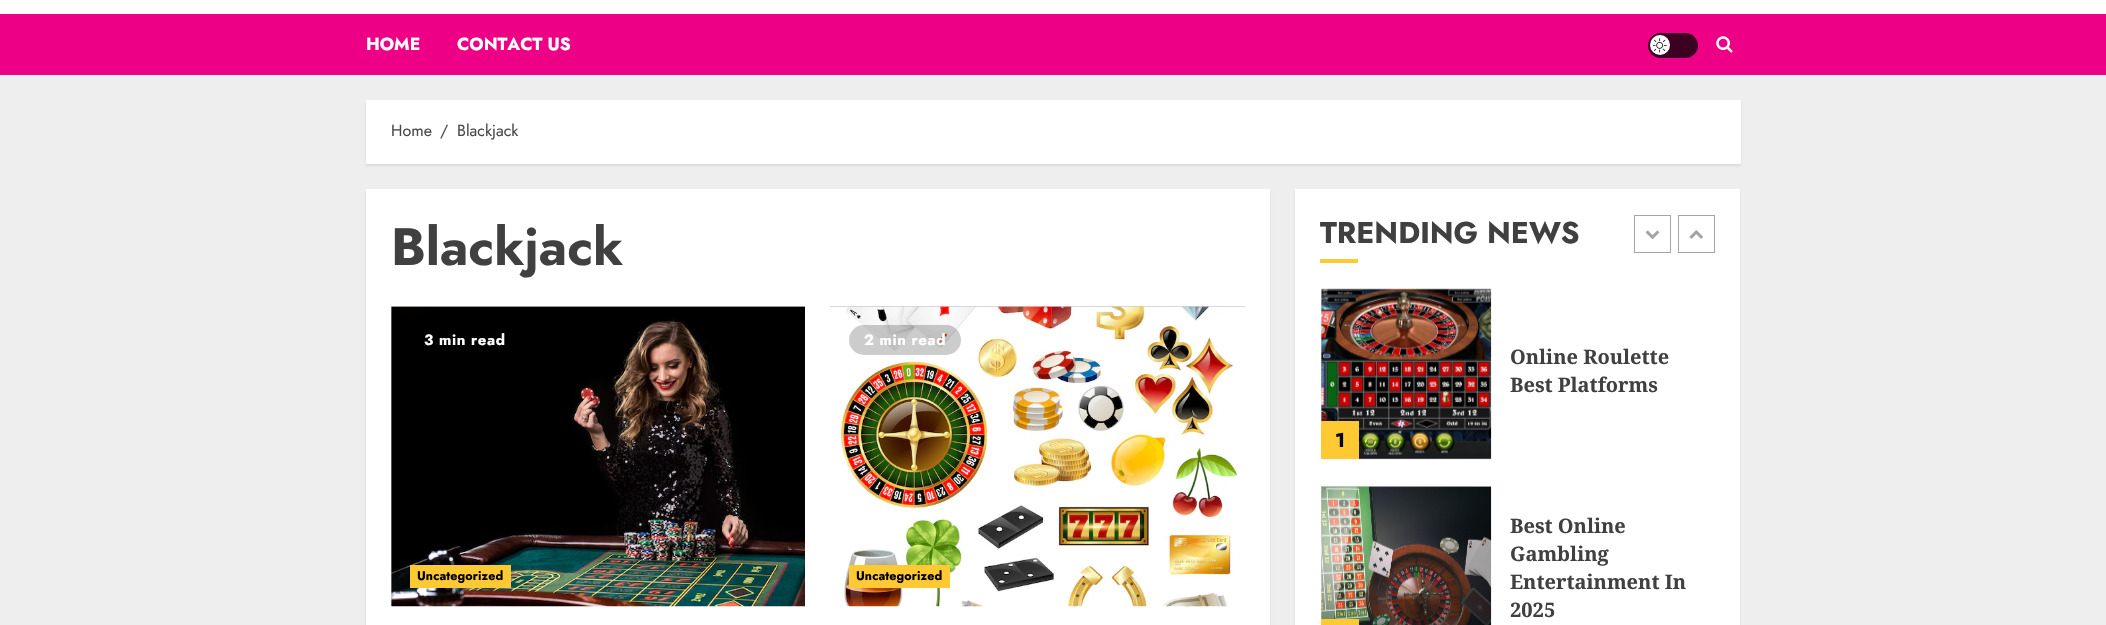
#include "include/core/SkBlurTypes.h"
#include "include/core/SkCanvas.h"
#include "include/core/SkData.h"
#include "include/core/SkFont.h"
#include "include/core/SkFontMgr.h"
#include "include/core/SkImage.h"
#include "include/core/SkMaskFilter.h"
#include "include/core/SkPaint.h"
#include "include/core/SkPathBuilder.h"
#include "include/core/SkTextBlob.h"
#include "include/effects/SkDashPathEffect.h"
#include "include/effects/SkGradientShader.h"
#include "include/utils/SkParsePath.h"

extern sk_sp<SkFontMgr> fontMgr;

void draw(SkCanvas* canvas) {
  SkPaint p;
  p.setAntiAlias(true);
  auto spacedText = [&](const char* s, float x, float y, const SkFont& font, const SkPaint& ink, float letter, float word) {
    std::vector<SkGlyphID> glyphs(font.countText(s, strlen(s), SkTextEncoding::kUTF8));
    std::vector<float> xs(glyphs.size());
    font.textToGlyphs(s, strlen(s), SkTextEncoding::kUTF8, glyphs);
    font.getXPos(glyphs, xs, x);
    float extra = 0;
    for (size_t i = 0; i < glyphs.size(); i++) {
      xs[i] += extra;
      extra += letter + word * (glyphs[i] == font.unicharToGlyph(' '));
    }
    canvas->drawTextBlob(SkTextBlob::MakeFromPosHGlyphs(glyphs, xs, y, font), 0, 0, ink);
  };
  canvas->clear(SkColorSetRGB(238, 238, 238));
  p.setColor(SK_ColorWHITE);
  canvas->drawRect(SkRect::MakeLTRB(0, 0, 2106, 14), p);
  p.setColor(SkColorSetRGB(237, 0, 134));
  canvas->drawRect(SkRect::MakeLTRB(0, 14, 2106, 75), p);
  p.setColor(SkColorSetRGB(59, 0, 34));
  canvas->drawRoundRect(SkRect::MakeLTRB(1648, 33, 1698, 58), 12.5f, 12.5f, p);
  p.setColor(SK_ColorWHITE);
  canvas->drawCircle(1660, 45, 10, p);
  canvas->drawImageRect(SkImages::DeferredFromEncodedData(SkData::MakeFromFileName("images/1.png")), SkRect::MakeLTRB(1653, 38, 1667, 53), SkSamplingOptions());
  canvas->drawImageRect(SkImages::DeferredFromEncodedData(SkData::MakeFromFileName("images/2.png")), SkRect::MakeLTRB(1716, 36, 1733, 53), SkSamplingOptions());
  p.setColor(SkColorSetARGB(20, 0, 0, 0));
  p.setMaskFilter(SkMaskFilter::MakeBlur(kNormal_SkBlurStyle, 1));
  canvas->drawRect(SkRect::MakeLTRB(366, 103, 1741, 166), p);
  p.setMaskFilter(nullptr);
  p.setColor(SK_ColorWHITE);
  canvas->drawRect(SkRect::MakeLTRB(366, 100, 1741, 164), p);
  p.setColor(SkColorSetARGB(20, 0, 0, 0));
  p.setMaskFilter(SkMaskFilter::MakeBlur(kNormal_SkBlurStyle, 1));
  canvas->drawRect(SkRect::MakeLTRB(366, 191, 1270, 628), p);
  p.setMaskFilter(nullptr);
  p.setColor(SK_ColorWHITE);
  canvas->drawRect(SkRect::MakeLTRB(366, 189, 1270, 625), p);
  p.setColor(SkColorSetRGB(204, 204, 204));
  canvas->drawRect(SkRect::MakeLTRB(391, 306, 805, 606), p);
  canvas->drawImageRect(SkImages::DeferredFromEncodedData(SkData::MakeFromFileName("images/3.png")), SkRect::MakeLTRB(391, 306, 805, 607), SkSamplingOptions());
  p.setColor(SkColorSetRGB(255, 201, 52));
  canvas->drawRect(SkRect::MakeLTRB(410, 565, 511, 588), p);
  p.setColor(SkColorSetRGB(204, 204, 204));
  canvas->drawRect(SkRect::MakeLTRB(830, 306, 1245, 307), p);
  canvas->drawImageRect(SkImages::DeferredFromEncodedData(SkData::MakeFromFileName("images/4.png")), SkRect::MakeLTRB(830, 306, 1245, 607), SkSamplingOptions());
  p.setColor(SkColorSetARGB(51, 0, 0, 0));
  canvas->drawRoundRect(SkRect::MakeLTRB(849, 325, 961, 355), 15, 15, p);
  p.setColor(SkColorSetRGB(255, 201, 52));
  canvas->drawRect(SkRect::MakeLTRB(849, 565, 950, 588), p);
  p.setColor(SkColorSetARGB(20, 0, 0, 0));
  p.setMaskFilter(SkMaskFilter::MakeBlur(kNormal_SkBlurStyle, 1));
  canvas->drawRect(SkRect::MakeLTRB(1295, 191, 1740, 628), p);
  p.setMaskFilter(nullptr);
  p.setColor(SK_ColorWHITE);
  canvas->drawRect(SkRect::MakeLTRB(1295, 189, 1740, 625), p);
  p.setColor(SkColorSetRGB(255, 201, 52));
  canvas->drawRect(SkRect::MakeLTRB(1320, 259, 1358, 263), p);
  p.setStyle(SkPaint::kStroke_Style);
  p.setStrokeWidth(1);
  p.setColor(SkColorSetRGB(165, 165, 165));
  canvas->drawRect(SkRect::MakeLTRB(1634.5f, 215.5f, 1670.5f, 252.5f), p);
  canvas->drawImageRect(SkImages::DeferredFromEncodedData(SkData::MakeFromFileName("images/5.png")), SkRect::MakeLTRB(1645, 230, 1660, 240), SkSamplingOptions());
  canvas->drawRect(SkRect::MakeLTRB(1678.5f, 215.5f, 1714.5f, 252.5f), p);
  canvas->drawImageRect(SkImages::DeferredFromEncodedData(SkData::MakeFromFileName("images/6.png")), SkRect::MakeLTRB(1689, 230, 1703, 239), SkSamplingOptions());
  p.setStyle(SkPaint::kFill_Style);
  p.setColor(SkColorSetRGB(204, 204, 204));
  canvas->drawRect(SkRect::MakeLTRB(1321, 289, 1491, 459), p);
  canvas->drawImageRect(SkImages::DeferredFromEncodedData(SkData::MakeFromFileName("images/7.png")), SkRect::MakeLTRB(1321, 288, 1492, 460), SkSamplingOptions());
  p.setColor(SkColorSetRGB(255, 201, 52));
  canvas->drawRect(SkRect::MakeLTRB(1321, 421, 1359, 459), p);
  p.setColor(SkColorSetRGB(204, 204, 204));
  canvas->drawRect(SkRect::MakeLTRB(1321, 486, 1491, 619), p);
  canvas->drawImageRect(SkImages::DeferredFromEncodedData(SkData::MakeFromFileName("images/8.png")), SkRect::MakeLTRB(1321, 486, 1492, 625), SkSamplingOptions());
  p.setColor(SkColorSetRGB(255, 201, 52));
  canvas->drawRect(SkRect::MakeLTRB(1321, 619, 1359, 625), p);
  SkFont font1(fontMgr->matchFamilyStyle("Jost", SkFontStyle::Bold()), 17.5f);
  font1.setSubpixel(true);
  p.setColor(SK_ColorWHITE);
  canvas->drawString("HOME", 366, 50, font1, p);
  canvas->drawString("CONTACT US", 457, 50, font1, p);
  SkFont font2(fontMgr->matchFamilyStyle("Jost", SkFontStyle::Normal()), 16);
  font2.setSubpixel(true);
  p.setColor(SkColorSetRGB(74, 74, 74));
  canvas->drawString("Home", 391, 136, font2, p);
  canvas->drawString("/", 440, 136, font2, p);
  canvas->drawString("Blackjack", 457, 136, font2, p);
  SkFont font3(fontMgr->matchFamilyStyle("Jost", SkFontStyle::Bold()), 52.5f);
  font3.setSubpixel(true);
  p.setColor(SkColorSetRGB(64, 64, 64));
  canvas->drawString("Blackjack", 391, 265, font3, p);
  SkFont font4(fontMgr->matchFamilyStyle("Jost", SkFontStyle::Bold()), 15);
  font4.setSubpixel(true);
  p.setColor(SK_ColorWHITE);
  spacedText("3 min read", 424, 345, font4, p, 0.6f, 0);
  SkFont font5(fontMgr->matchFamilyStyle("Jost", SkFontStyle::Bold()), 12.5f);
  font5.setSubpixel(true);
  p.setColor(SK_ColorBLACK);
  spacedText("Uncategorized", 417, 580, font5, p, 0.1f, 0);
  p.setColor(SK_ColorWHITE);
  spacedText("2 min read", 864, 345, font4, p, 0.6f, 0);
  p.setColor(SK_ColorBLACK);
  spacedText("Uncategorized", 856, 580, font5, p, 0.1f, 0);
  SkFont font6(fontMgr->matchFamilyStyle("Jost", SkFontStyle::Bold()), 30);
  font6.setSubpixel(true);
  p.setColor(SkColorSetRGB(64, 64, 64));
  canvas->drawString("TRENDING NEWS", 1320, 243, font6, p);
  SkFont font7(fontMgr->matchFamilyStyle("Noto Serif", SkFontStyle::Bold()), 20);
  font7.setSubpixel(true);
  canvas->drawString("Online Roulette", 1510, 364, font7, p);
  canvas->drawString("Best Platforms", 1510, 392, font7, p);
  SkFont font8(fontMgr->matchFamilyStyle("Jost", SkFontStyle::Bold()), 20);
  font8.setSubpixel(true);
  p.setColor(SK_ColorBLACK);
  canvas->drawString("1", 1335, 447, font8, p);
  p.setColor(SkColorSetRGB(64, 64, 64));
  canvas->drawString("Best Online", 1510, 533, font7, p);
  canvas->drawString("Gambling", 1510, 561, font7, p);
  canvas->drawString("Entertainment In", 1510, 589, font7, p);
  canvas->drawString("2025", 1510, 617, font7, p);
}
